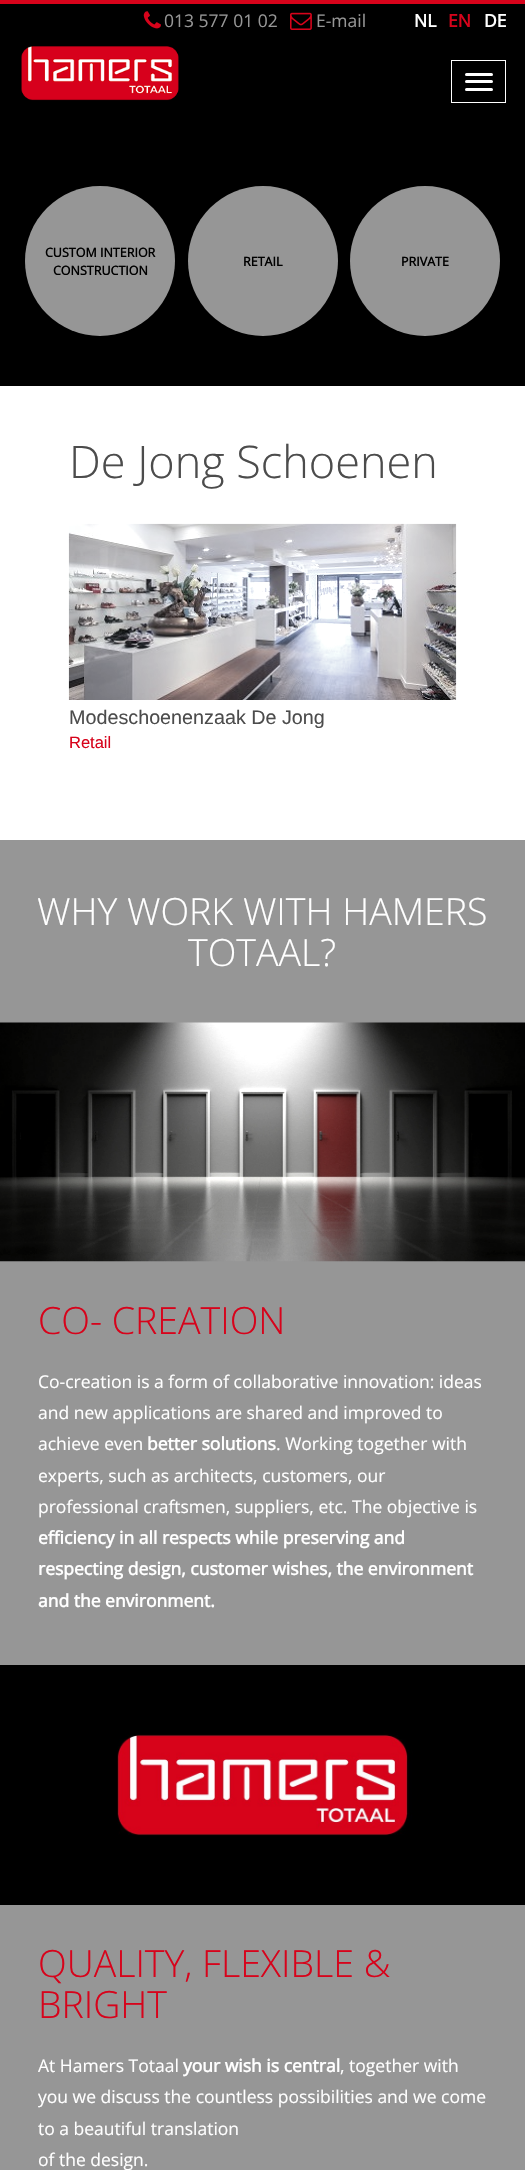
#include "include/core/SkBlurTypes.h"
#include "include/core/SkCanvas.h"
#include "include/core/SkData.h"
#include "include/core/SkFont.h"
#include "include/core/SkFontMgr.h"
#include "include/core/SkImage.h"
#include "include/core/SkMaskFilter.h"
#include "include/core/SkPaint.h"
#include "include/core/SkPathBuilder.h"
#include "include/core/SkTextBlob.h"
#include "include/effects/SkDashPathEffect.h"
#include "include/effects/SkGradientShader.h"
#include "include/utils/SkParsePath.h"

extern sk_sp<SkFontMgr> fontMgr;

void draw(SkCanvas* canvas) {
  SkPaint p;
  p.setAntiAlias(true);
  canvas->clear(SK_ColorBLACK);
  p.setColor(SkColorSetRGB(215, 3, 27));
  canvas->drawRect(SkRect::MakeLTRB(0, 0, 525, 4), p);
  canvas->drawImageRect(SkImages::DeferredFromEncodedData(SkData::MakeFromFileName("images/1.png")), SkRect::MakeLTRB(143, 11, 161, 29), SkSamplingOptions());
  canvas->drawImageRect(SkImages::DeferredFromEncodedData(SkData::MakeFromFileName("images/2.png")), SkRect::MakeLTRB(290, 12, 312, 30), SkSamplingOptions());
  canvas->drawImageRect(SkImages::DeferredFromEncodedData(SkData::MakeFromFileName("images/3.png")), SkRect::MakeLTRB(21, 46, 179, 101), SkSamplingOptions());
  p.setStyle(SkPaint::kStroke_Style);
  p.setStrokeWidth(1);
  p.setColor(SK_ColorWHITE);
  canvas->drawRect(SkRect::MakeLTRB(451.5f, 60.5f, 505.5f, 102.5f), p);
  p.setStyle(SkPaint::kFill_Style);
  canvas->drawRoundRect(SkRect::MakeLTRB(465, 73, 493, 76), 1.5f, 1.5f, p);
  canvas->drawRoundRect(SkRect::MakeLTRB(465, 80, 493, 83), 1.5f, 1.5f, p);
  canvas->drawRoundRect(SkRect::MakeLTRB(465, 88, 493, 91), 1.5f, 1.5f, p);
  p.setColor(SkColorSetRGB(150, 150, 150));
  canvas->drawCircle(100, 261, 75, p);
  canvas->drawCircle(263, 261, 75, p);
  canvas->drawCircle(425, 261, 75, p);
  p.setColor(SK_ColorWHITE);
  canvas->drawRect(SkRect::MakeLTRB(0, 386, 525, 840), p);
  canvas->drawImageRect(SkImages::DeferredFromEncodedData(SkData::MakeFromFileName("images/4.png")), SkRect::MakeLTRB(68, 523, 457, 700), SkSamplingOptions());
  p.setColor(SkColorSetRGB(150, 150, 150));
  canvas->drawRect(SkRect::MakeLTRB(0, 840, 525, 2170), p);
  canvas->drawImageRect(SkImages::DeferredFromEncodedData(SkData::MakeFromFileName("images/5.png")), SkRect::MakeLTRB(0, 1022, 525, 1262), SkSamplingOptions());
  canvas->drawImageRect(SkImages::DeferredFromEncodedData(SkData::MakeFromFileName("images/6.png")), SkRect::MakeLTRB(0, 1665, 525, 1905), SkSamplingOptions());
  SkFont font1(fontMgr->matchFamilyStyle("Open Sans", SkFontStyle::Normal()), 17.5f);
  font1.setSubpixel(true);
  canvas->drawString("013 577 01 02", 164, 27, font1, p);
  canvas->drawString("E-mail", 316, 27, font1, p);
  SkFont font2(fontMgr->matchFamilyStyle("Open Sans", SkFontStyle::Bold()), 17.5f);
  font2.setSubpixel(true);
  p.setColor(SK_ColorWHITE);
  canvas->drawString("NL", 414, 27, font2, p);
  p.setColor(SkColorSetRGB(215, 3, 27));
  canvas->drawString("EN", 448, 27, font2, p);
  p.setColor(SK_ColorWHITE);
  canvas->drawString("DE", 484, 27, font2, p);
  SkFont font3(fontMgr->matchFamilyStyle("Open Sans", SkFontStyle::Bold()), 12.5f);
  font3.setSubpixel(true);
  p.setColor(SK_ColorBLACK);
  canvas->drawString("CUSTOM INTERIOR", 45, 257, font3, p);
  canvas->drawString("CONSTRUCTION", 53, 275, font3, p);
  canvas->drawString("RETAIL", 243, 266, font3, p);
  canvas->drawString("PRIVATE", 401, 266, font3, p);
  SkFont font4(fontMgr->matchFamilyStyle("Open Sans", SkFontStyle(300, SkFontStyle::kNormal_Width, SkFontStyle::kUpright_Slant)), 45);
  font4.setSubpixel(true);
  p.setColor(SkColorSetRGB(76, 76, 76));
  canvas->drawString("De Jong Schoenen", 69, 478, font4, p);
  SkFont font5(fontMgr->matchFamilyStyle("Liberation Sans", SkFontStyle::Normal()), 19.75f);
  font5.setSubpixel(true);
  canvas->drawString("Modeschoenenzaak De Jong", 69, 724, font5, p);
  SkFont font6(fontMgr->matchFamilyStyle("Liberation Sans", SkFontStyle::Normal()), 16.5f);
  font6.setSubpixel(true);
  p.setColor(SkColorSetRGB(215, 3, 27));
  canvas->drawString("Retail", 69, 748, font6, p);
  SkFont font7(fontMgr->matchFamilyStyle("Open Sans", SkFontStyle(300, SkFontStyle::kNormal_Width, SkFontStyle::kUpright_Slant)), 37.5f);
  font7.setSubpixel(true);
  p.setColor(SK_ColorWHITE);
  canvas->drawString("WHY WORK WITH HAMERS", 37, 925, font7, p);
  canvas->drawString("TOTAAL?", 188, 966, font7, p);
  p.setColor(SkColorSetRGB(215, 3, 27));
  canvas->drawString("CO- CREATION", 38, 1334, font7, p);
  p.setColor(SK_ColorWHITE);
  canvas->drawString("Co-creation is a form of collaborative innovation: ideas", 38, 1388, font1, p);
  canvas->drawString("and new applications are shared and improved to", 38, 1419, font1, p);
  canvas->drawString("achieve even", 38, 1450, font1, p);
  canvas->drawString("better solutions", 147, 1450, font2, p);
  canvas->drawString(". Working together with", 276, 1450, font1, p);
  canvas->drawString("experts, such as architects, customers, our", 38, 1482, font1, p);
  canvas->drawString("professional craftsmen, suppliers, etc. The objective is", 38, 1513, font1, p);
  canvas->drawString("efficiency in all respects while preserving and", 38, 1544, font2, p);
  canvas->drawString("respecting design, customer wishes, the environment", 38, 1575, font2, p);
  canvas->drawString("and the environment.", 38, 1607, font2, p);
  p.setColor(SkColorSetRGB(215, 3, 27));
  canvas->drawString("QUALITY, FLEXIBLE &", 38, 1977, font7, p);
  canvas->drawString("BRIGHT", 38, 2018, font7, p);
  p.setColor(SK_ColorWHITE);
  canvas->drawString("At Hamers Totaal", 38, 2072, font1, p);
  canvas->drawString("your wish is central", 183, 2072, font2, p);
  canvas->drawString(", together with", 340, 2072, font1, p);
  canvas->drawString("you we discuss the countless possibilities and we come", 38, 2103, font1, p);
  canvas->drawString("to a beautiful translation", 38, 2135, font1, p);
  canvas->drawString("of the design.", 38, 2166, font1, p);
}
